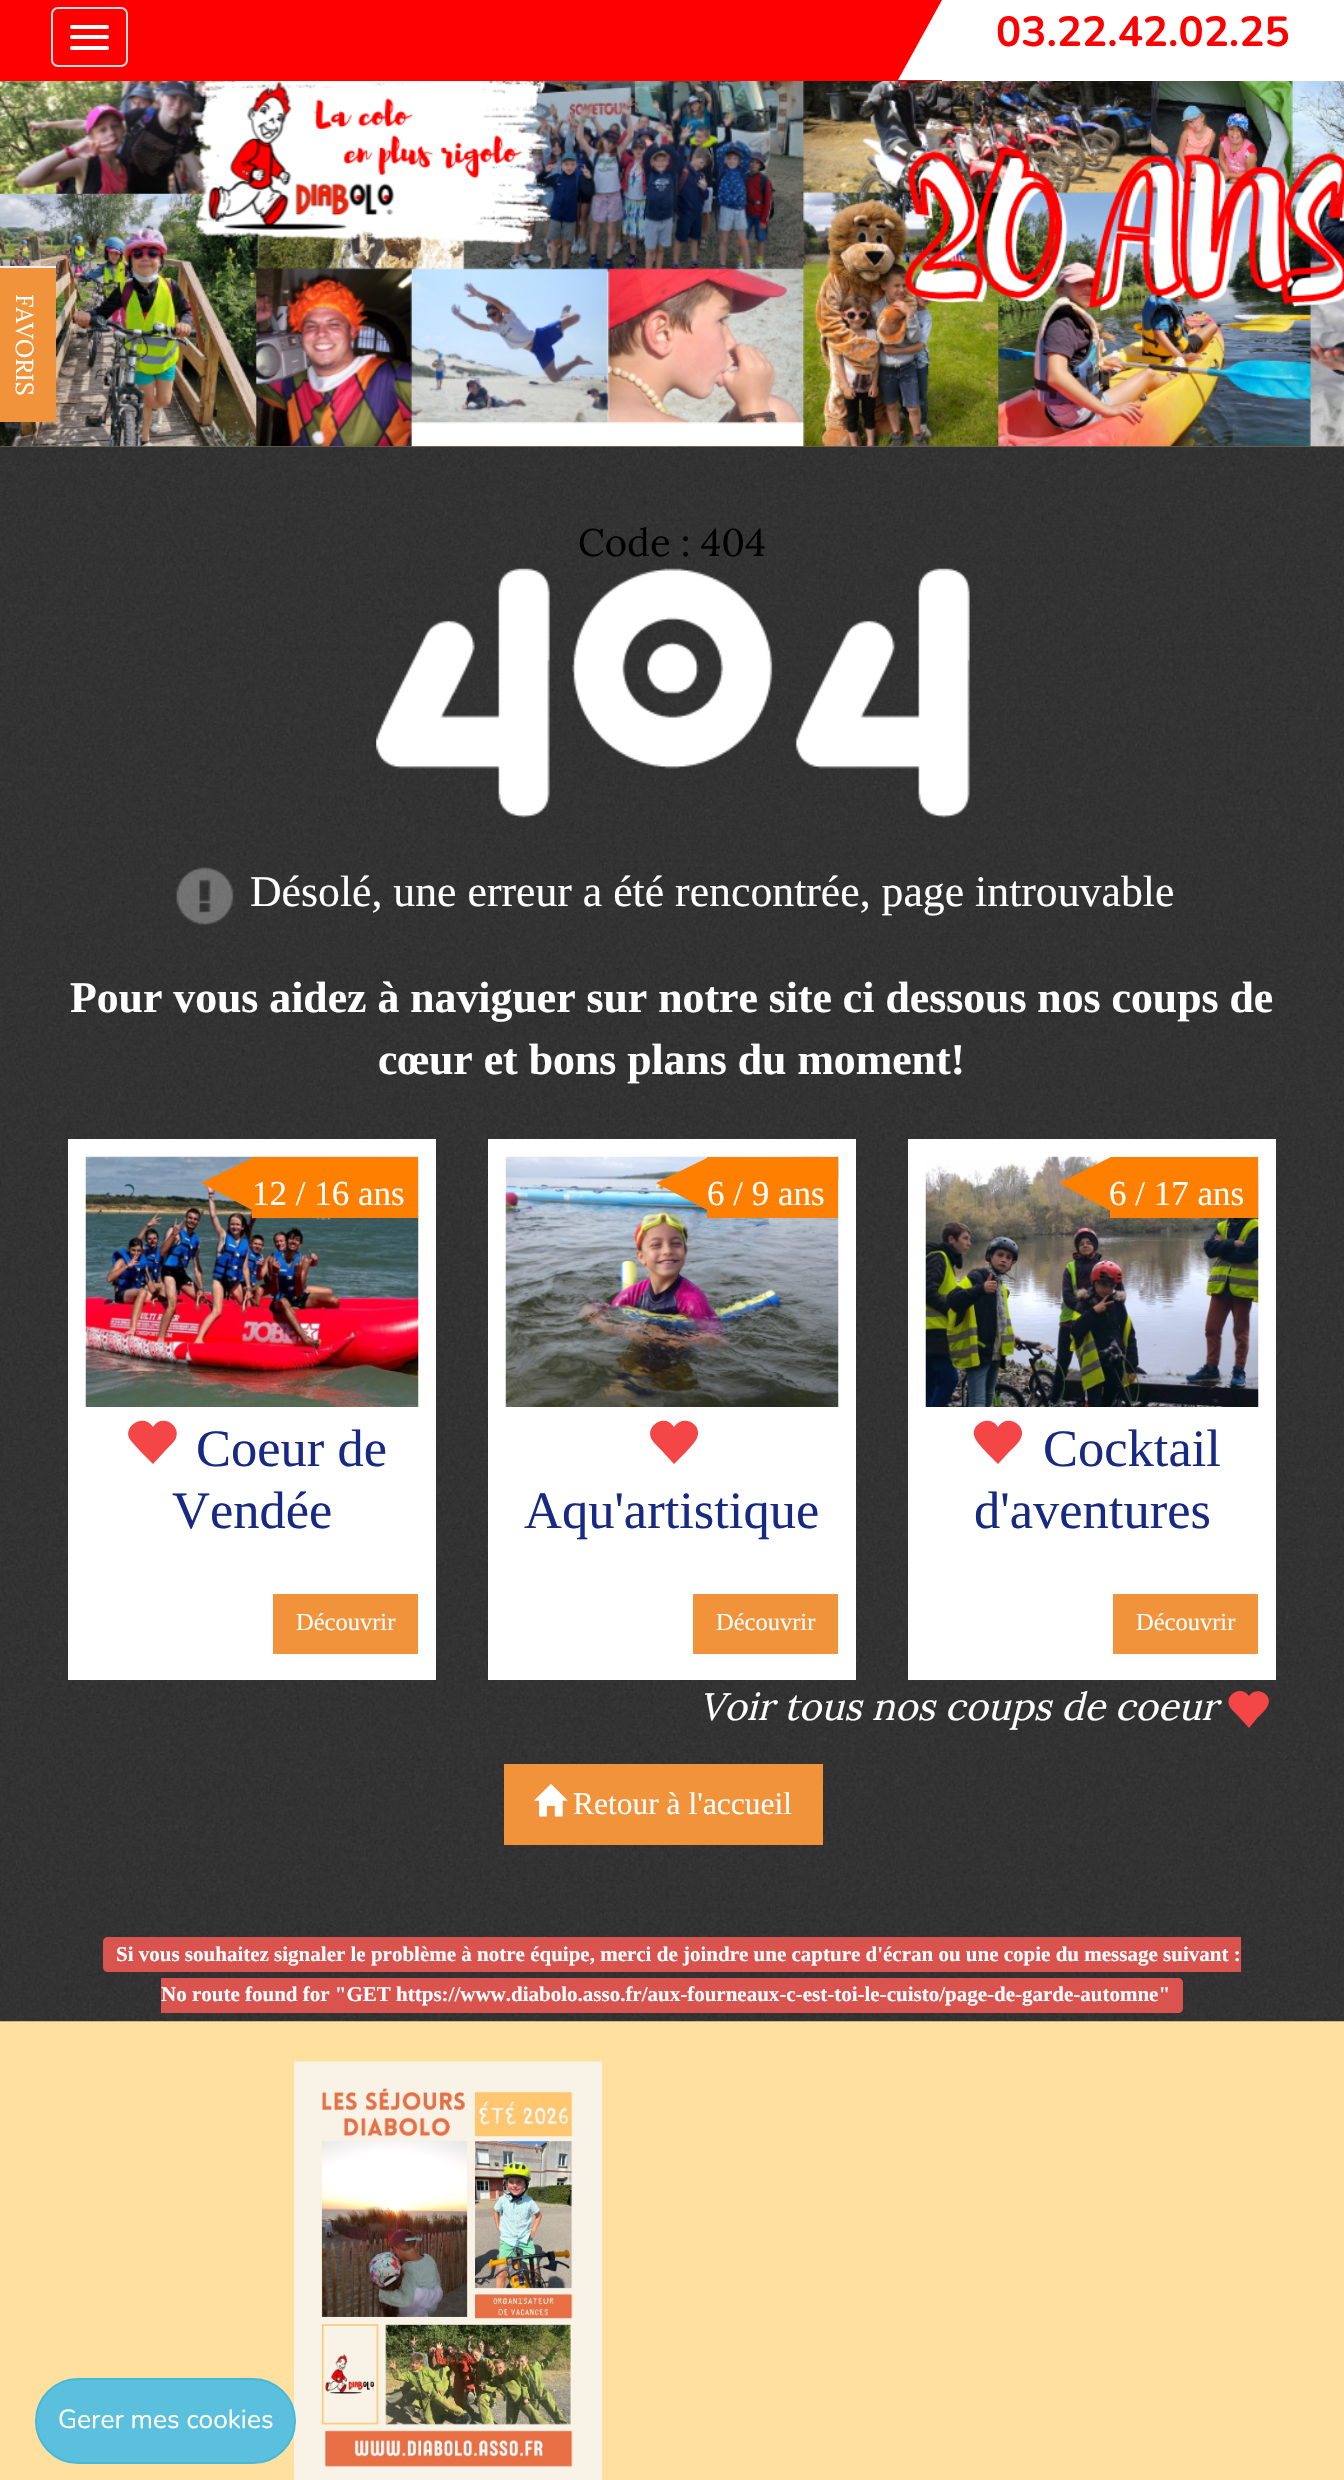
#include "include/core/SkBlurTypes.h"
#include "include/core/SkCanvas.h"
#include "include/core/SkData.h"
#include "include/core/SkFont.h"
#include "include/core/SkFontMgr.h"
#include "include/core/SkImage.h"
#include "include/core/SkMaskFilter.h"
#include "include/core/SkPaint.h"
#include "include/core/SkPathBuilder.h"
#include "include/core/SkTextBlob.h"
#include "include/effects/SkDashPathEffect.h"
#include "include/effects/SkGradientShader.h"
#include "include/utils/SkParsePath.h"

extern sk_sp<SkFontMgr> fontMgr;

void draw(SkCanvas* canvas) {
  SkPaint p;
  p.setAntiAlias(true);
  canvas->clear(SkColorSetRGB(255, 224, 158));
  canvas->drawImageRect(SkImages::DeferredFromEncodedData(SkData::MakeFromFileName("images/2.png")), SkRect::MakeLTRB(0, 446, 1344, 2022), SkSamplingOptions());
  canvas->drawImageRect(SkImages::DeferredFromEncodedData(SkData::MakeFromFileName("images/1.png")), SkRect::MakeLTRB(0, 81, 1344, 447), SkSamplingOptions());
  p.setColor(SkColorSetRGB(255, 0, 0));
  canvas->drawRect(SkRect::MakeLTRB(0, 0, 942, 81), p);
  p.setStyle(SkPaint::kStroke_Style);
  p.setStrokeWidth(2);
  p.setColor(SkColorSetRGB(221, 221, 221));
  canvas->drawRoundRect(SkRect::MakeLTRB(52, 8, 127, 66), 6, 6, p);
  p.setStyle(SkPaint::kFill_Style);
  p.setColor(SK_ColorWHITE);
  canvas->drawRoundRect(SkRect::MakeLTRB(70, 25, 109, 29), 2, 2, p);
  canvas->drawRoundRect(SkRect::MakeLTRB(70, 35, 109, 39), 2, 2, p);
  canvas->drawRoundRect(SkRect::MakeLTRB(70, 46, 109, 50), 2, 2, p);
  canvas->drawPath(SkPathBuilder().moveTo(942, 80).lineTo(898, 80).lineTo(942, 0).close().detach(), p);
  canvas->drawRect(SkRect::MakeLTRB(942, 0, 1344, 81), p);
  p.setColor(SkColorSetRGB(241, 147, 59));
  canvas->drawRect(SkRect::MakeLTRB(0, 268, 56, 422), p);
  p.setColor(SkColorSetRGB(240, 240, 240));
  canvas->drawRect(SkRect::MakeLTRB(0, 266, 56, 268), p);
  canvas->drawImageRect(SkImages::DeferredFromEncodedData(SkData::MakeFromFileName("images/3.png")), SkRect::MakeLTRB(376, 568, 970, 818), SkSamplingOptions());
  canvas->drawImageRect(SkImages::DeferredFromEncodedData(SkData::MakeFromFileName("images/4.png")), SkRect::MakeLTRB(176, 867, 234, 925), SkSamplingOptions());
  p.setColor(SK_ColorWHITE);
  canvas->drawRect(SkRect::MakeLTRB(68, 1139, 436, 1680), p);
  canvas->drawImageRect(SkImages::DeferredFromEncodedData(SkData::MakeFromFileName("images/5.png")), SkRect::MakeLTRB(85, 1156, 419, 1407), SkSamplingOptions());
  p.setColor(SkColorSetRGB(255, 128, 0));
  canvas->drawPath(SkPathBuilder().moveTo(254, 1157).lineTo(254, 1211).lineTo(201, 1183).close().detach(), p);
  canvas->drawRect(SkRect::MakeLTRB(252, 1157, 418, 1218), p);
  p.setColor(SkColorSetRGB(244, 70, 70));
  canvas->drawPath(SkPathBuilder().moveTo(153, 1427).cubicTo(162, 1413, 181, 1425, 176, 1438).cubicTo(174, 1443, 168, 1447, 164, 1452).lineTo(153, 1464).lineTo(141, 1452).cubicTo(137, 1447, 132, 1443, 129, 1438).cubicTo(124, 1425, 144, 1413, 153, 1427).close().detach(), p);
  p.setColor(SkColorSetRGB(241, 147, 59));
  canvas->drawRect(SkRect::MakeLTRB(273, 1594, 418, 1654), p);
  p.setColor(SK_ColorWHITE);
  canvas->drawRect(SkRect::MakeLTRB(488, 1139, 856, 1680), p);
  canvas->drawImageRect(SkImages::DeferredFromEncodedData(SkData::MakeFromFileName("images/6.png")), SkRect::MakeLTRB(505, 1156, 839, 1407), SkSamplingOptions());
  p.setColor(SkColorSetRGB(255, 128, 0));
  canvas->drawPath(SkPathBuilder().moveTo(709, 1157).lineTo(709, 1211).lineTo(656, 1183).close().detach(), p);
  canvas->drawRect(SkRect::MakeLTRB(707, 1157, 838, 1218), p);
  p.setColor(SkColorSetRGB(244, 70, 70));
  canvas->drawPath(SkPathBuilder().moveTo(674, 1427).cubicTo(684, 1413, 703, 1425, 697, 1438).cubicTo(695, 1443, 690, 1447, 686, 1452).lineTo(674, 1464).lineTo(663, 1452).cubicTo(659, 1447, 653, 1443, 651, 1438).cubicTo(646, 1425, 665, 1413, 674, 1427).close().detach(), p);
  p.setColor(SkColorSetRGB(241, 147, 59));
  canvas->drawRect(SkRect::MakeLTRB(693, 1594, 838, 1654), p);
  p.setColor(SK_ColorWHITE);
  canvas->drawRect(SkRect::MakeLTRB(908, 1139, 1276, 1680), p);
  canvas->drawImageRect(SkImages::DeferredFromEncodedData(SkData::MakeFromFileName("images/7.png")), SkRect::MakeLTRB(925, 1156, 1259, 1407), SkSamplingOptions());
  p.setColor(SkColorSetRGB(255, 128, 0));
  canvas->drawPath(SkPathBuilder().moveTo(1111, 1157).lineTo(1111, 1211).lineTo(1059, 1183).close().detach(), p);
  canvas->drawRect(SkRect::MakeLTRB(1110, 1157, 1258, 1218), p);
  p.setColor(SkColorSetRGB(244, 70, 70));
  canvas->drawPath(SkPathBuilder().moveTo(998, 1427).cubicTo(1007, 1413, 1027, 1425, 1021, 1438).cubicTo(1019, 1443, 1014, 1447, 1009, 1452).lineTo(998, 1464).lineTo(986, 1452).cubicTo(982, 1447, 977, 1443, 975, 1438).cubicTo(969, 1425, 989, 1413, 998, 1427).close().detach(), p);
  p.setColor(SkColorSetRGB(241, 147, 59));
  canvas->drawRect(SkRect::MakeLTRB(1113, 1594, 1258, 1654), p);
  p.setColor(SkColorSetRGB(244, 70, 70));
  canvas->drawPath(SkPathBuilder().moveTo(1249, 1696).cubicTo(1257, 1685, 1273, 1695, 1268, 1705).cubicTo(1266, 1710, 1262, 1713, 1258, 1717).lineTo(1249, 1728).lineTo(1239, 1717).cubicTo(1236, 1713, 1231, 1710, 1229, 1705).cubicTo(1225, 1694, 1242, 1685, 1249, 1696).close().detach(), p);
  p.setColor(SkColorSetRGB(241, 147, 59));
  canvas->drawRect(SkRect::MakeLTRB(504, 1764, 823, 1845), p);
  canvas->drawImageRect(SkImages::DeferredFromEncodedData(SkData::MakeFromFileName("images/8.png")), SkRect::MakeLTRB(534, 1784, 568, 1817), SkSamplingOptions());
  p.setColor(SkColorSetRGB(217, 83, 79));
  canvas->drawPath(SkPathBuilder().moveTo(108, 1937).lineTo(1241, 1937).lineTo(1241, 1972).lineTo(108, 1972).cubicTo(105, 1972, 103, 1970, 103, 1967).lineTo(103, 1942).cubicTo(103, 1939, 105, 1937, 108, 1937).close().detach(), p);
  canvas->drawPath(SkPathBuilder().moveTo(161, 1978).lineTo(1178, 1978).cubicTo(1181, 1978, 1183, 1980, 1183, 1983).lineTo(1183, 2008).cubicTo(1183, 2011, 1181, 2013, 1178, 2013).lineTo(161, 2013).close().detach(), p);
  canvas->drawImageRect(SkImages::DeferredFromEncodedData(SkData::MakeFromFileName("images/9.png")), SkRect::MakeLTRB(294, 2061, 602, 2480), SkSamplingOptions());
  p.setColor(SkColorSetRGB(91, 192, 222));
  canvas->drawRoundRect(SkRect::MakeLTRB(36, 2379, 295, 2463), 42, 42, p);
  p.setStyle(SkPaint::kStroke_Style);
  p.setColor(SkColorSetRGB(70, 184, 218));
  canvas->drawRoundRect(SkRect::MakeLTRB(36, 2379, 295, 2463), 42, 42, p);
  SkFont font1(fontMgr->matchFamilyStyle("Nunito", SkFontStyle::Bold()), 42);
  font1.setSubpixel(true);
  p.setStyle(SkPaint::kFill_Style);
  p.setColor(SkColorSetRGB(255, 0, 0));
  canvas->drawString("03.22.42.02.25", 996, 46, font1, p);
  SkFont font2(fontMgr->matchFamilyStyle("Lora", SkFontStyle::Normal()), 24.5f);
  font2.setSubpixel(true);
  p.setColor(SK_ColorWHITE);
  canvas->save();
  canvas->rotate(90, 16, 294);
  canvas->drawString("FAVORIS", 16, 294, font2, p);
  canvas->restore();
  SkFont font3(fontMgr->matchFamilyStyle("Lora", SkFontStyle::Normal()), 38.25f);
  font3.setSubpixel(true);
  p.setColor(SK_ColorBLACK);
  canvas->drawString("Code : 404", 578, 556, font3, p);
  SkFont font4(fontMgr->matchFamilyStyle("Liberation Serif", SkFontStyle::Normal()), 43.75f);
  font4.setSubpixel(true);
  p.setColor(SK_ColorWHITE);
  canvas->drawString("Désolé, une erreur a été rencontrée, page introuvable", 250, 906, font4, p);
  SkFont font5(fontMgr->matchFamilyStyle("Liberation Serif", SkFontStyle::Bold()), 43.75f);
  font5.setSubpixel(true);
  canvas->drawString("Pour vous aidez à naviguer sur notre site ci dessous nos coups de", 70, 1012, font5, p);
  canvas->drawString("cœur et bons plans du moment!", 378, 1074, font5, p);
  SkFont font6(fontMgr->matchFamilyStyle("Liberation Serif", SkFontStyle::Normal()), 35);
  font6.setSubpixel(true);
  canvas->drawString("12 / 16 ans", 252, 1205, font6, p);
  SkFont font7(fontMgr->matchFamilyStyle("Liberation Serif", SkFontStyle::Normal()), 52.5f);
  font7.setSubpixel(true);
  p.setColor(SkColorSetRGB(23, 41, 131));
  canvas->drawString("Coeur de", 196, 1466, font7, p);
  canvas->drawString("Vendée", 172, 1528, font7, p);
  SkFont font8(fontMgr->matchFamilyStyle("Liberation Serif", SkFontStyle::Normal()), 24.5f);
  font8.setSubpixel(true);
  p.setColor(SK_ColorWHITE);
  canvas->drawString("Découvrir", 296, 1630, font8, p);
  canvas->drawString("6 / 9 ans", 707, 1205, font6, p);
  p.setColor(SkColorSetRGB(23, 41, 131));
  canvas->drawString("Aqu'artistique", 524, 1528, font7, p);
  p.setColor(SK_ColorWHITE);
  canvas->drawString("Découvrir", 716, 1630, font8, p);
  canvas->drawString("6 / 17 ans", 1109, 1205, font6, p);
  p.setColor(SkColorSetRGB(23, 41, 131));
  canvas->drawString("Cocktail", 1043, 1466, font7, p);
  canvas->drawString("d'aventures", 974, 1528, font7, p);
  p.setColor(SK_ColorWHITE);
  canvas->drawString("Découvrir", 1136, 1630, font8, p);
  SkFont font9(fontMgr->matchFamilyStyle("Lora", SkFontStyle::Italic()), 38.25f);
  font9.setSubpixel(true);
  canvas->drawString("Voir tous nos coups de coeur", 699, 1720, font9, p);
  SkFont font10(fontMgr->matchFamilyStyle("Liberation Serif", SkFontStyle::Normal()), 31.5f);
  font10.setSubpixel(true);
  canvas->drawString("Retour à l'accueil", 573, 1814, font10, p);
  SkFont font11(fontMgr->matchFamilyStyle("Liberation Serif", SkFontStyle::Bold()), 21);
  font11.setSubpixel(true);
  canvas->drawString("Si vous souhaitez signaler le problème à notre équipe, merci de joindre une capture d'écran ou une copie du message suivant :", 116, 1961, font11, p);
  canvas->drawString("No route found for \"GET https://www.diabolo.asso.fr/aux-fourneaux-c-est-toi-le-cuisto/page-de-garde-automne\"", 161, 2001, font11, p);
  SkFont font12(fontMgr->matchFamilyStyle("Nunito", SkFontStyle::Normal()), 26.25f);
  font12.setSubpixel(true);
  canvas->drawString("Gerer mes cookies", 58, 2428, font12, p);
}
